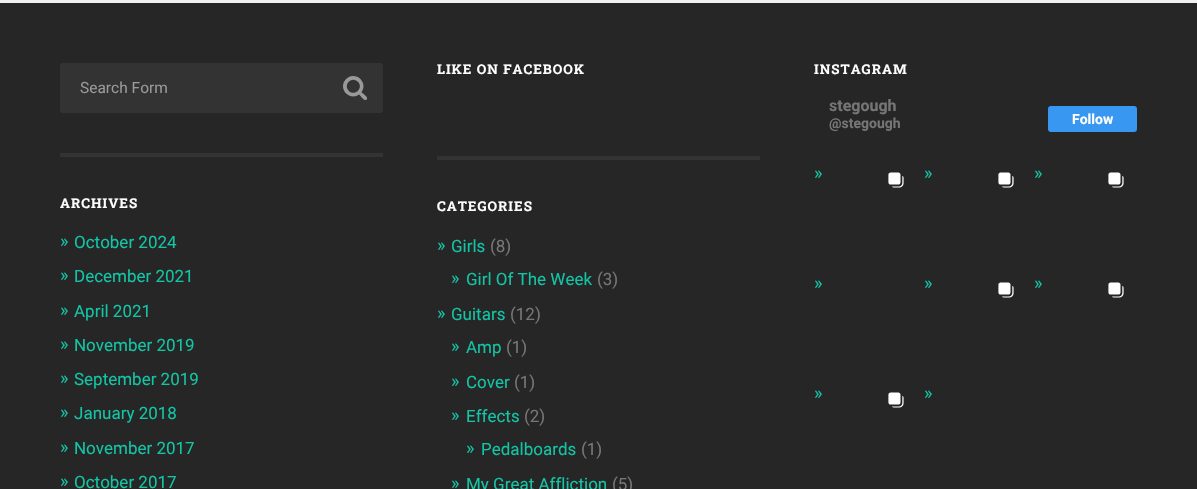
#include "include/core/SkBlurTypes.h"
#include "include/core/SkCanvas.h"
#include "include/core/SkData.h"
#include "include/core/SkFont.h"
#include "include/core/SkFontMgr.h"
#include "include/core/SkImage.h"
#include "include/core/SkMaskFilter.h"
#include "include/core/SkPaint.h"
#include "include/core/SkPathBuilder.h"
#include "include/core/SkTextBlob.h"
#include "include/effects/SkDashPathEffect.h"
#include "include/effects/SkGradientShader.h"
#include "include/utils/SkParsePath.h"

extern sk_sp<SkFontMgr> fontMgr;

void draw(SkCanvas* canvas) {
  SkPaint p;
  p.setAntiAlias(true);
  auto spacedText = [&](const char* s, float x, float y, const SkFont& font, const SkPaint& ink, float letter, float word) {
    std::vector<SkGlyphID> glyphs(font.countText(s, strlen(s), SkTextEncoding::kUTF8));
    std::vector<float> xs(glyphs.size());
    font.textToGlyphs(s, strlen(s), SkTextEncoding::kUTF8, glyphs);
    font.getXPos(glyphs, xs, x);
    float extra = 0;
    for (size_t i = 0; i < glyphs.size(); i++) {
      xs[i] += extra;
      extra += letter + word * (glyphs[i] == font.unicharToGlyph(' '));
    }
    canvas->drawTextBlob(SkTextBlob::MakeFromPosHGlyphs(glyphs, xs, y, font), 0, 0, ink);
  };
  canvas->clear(SkColorSetRGB(241, 241, 241));
  p.setColor(SkColorSetRGB(38, 38, 38));
  canvas->drawRect(SkRect::MakeLTRB(0, 3, 1197, 489), p);
  p.setColor(SkColorSetRGB(51, 51, 51));
  canvas->drawRoundRect(SkRect::MakeLTRB(60, 63, 383, 113), 3, 3, p);
  canvas->drawImageRect(SkImages::DeferredFromEncodedData(SkData::MakeFromFileName("images/1.png")), SkRect::MakeLTRB(343, 76, 367, 100), SkSamplingOptions());
  canvas->drawRect(SkRect::MakeLTRB(60, 153, 383, 157), p);
  canvas->drawRect(SkRect::MakeLTRB(437, 156, 760, 160), p);
  p.setColor(SkColorSetRGB(56, 151, 240));
  canvas->drawRoundRect(SkRect::MakeLTRB(1048, 106, 1137, 132), 3, 3, p);
  canvas->drawImageRect(SkImages::DeferredFromEncodedData(SkData::MakeFromFileName("images/2.png")), SkRect::MakeLTRB(888, 172, 904, 188), SkSamplingOptions());
  canvas->drawImageRect(SkImages::DeferredFromEncodedData(SkData::MakeFromFileName("images/2.png")), SkRect::MakeLTRB(998, 172, 1014, 188), SkSamplingOptions());
  canvas->drawImageRect(SkImages::DeferredFromEncodedData(SkData::MakeFromFileName("images/2.png")), SkRect::MakeLTRB(1108, 172, 1124, 188), SkSamplingOptions());
  canvas->drawImageRect(SkImages::DeferredFromEncodedData(SkData::MakeFromFileName("images/2.png")), SkRect::MakeLTRB(998, 282, 1014, 298), SkSamplingOptions());
  canvas->drawImageRect(SkImages::DeferredFromEncodedData(SkData::MakeFromFileName("images/2.png")), SkRect::MakeLTRB(1108, 282, 1124, 298), SkSamplingOptions());
  canvas->drawImageRect(SkImages::DeferredFromEncodedData(SkData::MakeFromFileName("images/2.png")), SkRect::MakeLTRB(888, 392, 904, 408), SkSamplingOptions());
  SkFont font1(fontMgr->matchFamilyStyle("Roboto", SkFontStyle::Normal()), 15.5f);
  font1.setSubpixel(true);
  p.setColor(SkColorSetRGB(153, 153, 153));
  canvas->drawString("Search Form", 80, 93, font1, p);
  SkFont font2(fontMgr->matchFamilyStyle("Roboto Slab", SkFontStyle::Bold()), 13.5f);
  font2.setSubpixel(true);
  p.setColor(SK_ColorWHITE);
  spacedText("ARCHIVES", 60, 208, font2, p, 1, 0);
  SkFont font3(fontMgr->matchFamilyStyle("Roboto", SkFontStyle::Normal()), 18);
  font3.setSubpixel(true);
  p.setColor(SkColorSetRGB(19, 196, 165));
  canvas->drawString("»", 60, 247, font3, p);
  SkFont font4(fontMgr->matchFamilyStyle("Roboto", SkFontStyle::Normal()), 17);
  font4.setSubpixel(true);
  canvas->drawString("October 2024", 74, 248, font4, p);
  canvas->drawString("»", 60, 281, font3, p);
  canvas->drawString("December 2021", 74, 282, font4, p);
  canvas->drawString("»", 60, 316, font3, p);
  canvas->drawString("April 2021", 74, 317, font4, p);
  canvas->drawString("»", 60, 350, font3, p);
  canvas->drawString("November 2019", 74, 351, font4, p);
  canvas->drawString("»", 60, 384, font3, p);
  canvas->drawString("September 2019", 74, 385, font4, p);
  canvas->drawString("»", 60, 418, font3, p);
  canvas->drawString("January 2018", 74, 419, font4, p);
  canvas->drawString("»", 60, 453, font3, p);
  canvas->drawString("November 2017", 74, 454, font4, p);
  canvas->drawString("»", 60, 487, font3, p);
  canvas->drawString("October 2017", 74, 488, font4, p);
  p.setColor(SK_ColorWHITE);
  spacedText("LIKE ON FACEBOOK", 437, 74, font2, p, 1, 0);
  spacedText("CATEGORIES", 437, 211, font2, p, 1, 0);
  p.setColor(SkColorSetRGB(19, 196, 165));
  canvas->drawString("»", 437, 251, font3, p);
  canvas->drawString("Girls", 451, 252, font4, p);
  p.setColor(SkColorSetRGB(118, 118, 118));
  canvas->drawString("(8)", 490, 252, font4, p);
  p.setColor(SkColorSetRGB(19, 196, 165));
  canvas->drawString("»", 451, 284, font3, p);
  canvas->drawString("Girl Of The Week", 466, 285, font4, p);
  p.setColor(SkColorSetRGB(118, 118, 118));
  canvas->drawString("(3)", 597, 285, font4, p);
  p.setColor(SkColorSetRGB(19, 196, 165));
  canvas->drawString("»", 437, 319, font3, p);
  canvas->drawString("Guitars", 451, 320, font4, p);
  p.setColor(SkColorSetRGB(118, 118, 118));
  canvas->drawString("(12)", 510, 320, font4, p);
  p.setColor(SkColorSetRGB(19, 196, 165));
  canvas->drawString("»", 451, 352, font3, p);
  canvas->drawString("Amp", 466, 353, font4, p);
  p.setColor(SkColorSetRGB(118, 118, 118));
  canvas->drawString("(1)", 506, 353, font4, p);
  p.setColor(SkColorSetRGB(19, 196, 165));
  canvas->drawString("»", 451, 387, font3, p);
  canvas->drawString("Cover", 466, 388, font4, p);
  p.setColor(SkColorSetRGB(118, 118, 118));
  canvas->drawString("(1)", 514, 388, font4, p);
  p.setColor(SkColorSetRGB(19, 196, 165));
  canvas->drawString("»", 451, 421, font3, p);
  canvas->drawString("Effects", 466, 422, font4, p);
  p.setColor(SkColorSetRGB(118, 118, 118));
  canvas->drawString("(2)", 524, 422, font4, p);
  p.setColor(SkColorSetRGB(19, 196, 165));
  canvas->drawString("»", 466, 454, font3, p);
  canvas->drawString("Pedalboards", 481, 455, font4, p);
  p.setColor(SkColorSetRGB(118, 118, 118));
  canvas->drawString("(1)", 581, 455, font4, p);
  p.setColor(SkColorSetRGB(19, 196, 165));
  canvas->drawString("»", 451, 489, font3, p);
  canvas->drawString("My Great Affliction", 466, 490, font4, p);
  p.setColor(SkColorSetRGB(118, 118, 118));
  canvas->drawString("(5)", 612, 490, font4, p);
  p.setColor(SK_ColorWHITE);
  spacedText("INSTAGRAM", 814, 74, font2, p, 1, 0);
  SkFont font5(fontMgr->matchFamilyStyle("Roboto", SkFontStyle::Bold()), 16);
  font5.setSubpixel(true);
  p.setColor(SkColorSetRGB(118, 118, 118));
  canvas->drawString("stegough", 829, 111, font5, p);
  SkFont font6(fontMgr->matchFamilyStyle("Roboto", SkFontStyle::Bold()), 14);
  font6.setSubpixel(true);
  canvas->drawString("@stegough", 829, 128, font6, p);
  p.setColor(SK_ColorWHITE);
  canvas->drawString("Follow", 1072, 124, font6, p);
  p.setColor(SkColorSetRGB(19, 196, 165));
  canvas->drawString("»", 814, 179, font3, p);
  canvas->drawString("»", 924, 179, font3, p);
  canvas->drawString("»", 1034, 179, font3, p);
  canvas->drawString("»", 814, 289, font3, p);
  canvas->drawString("»", 924, 289, font3, p);
  canvas->drawString("»", 1034, 289, font3, p);
  canvas->drawString("»", 814, 399, font3, p);
  canvas->drawString("»", 924, 399, font3, p);
}
